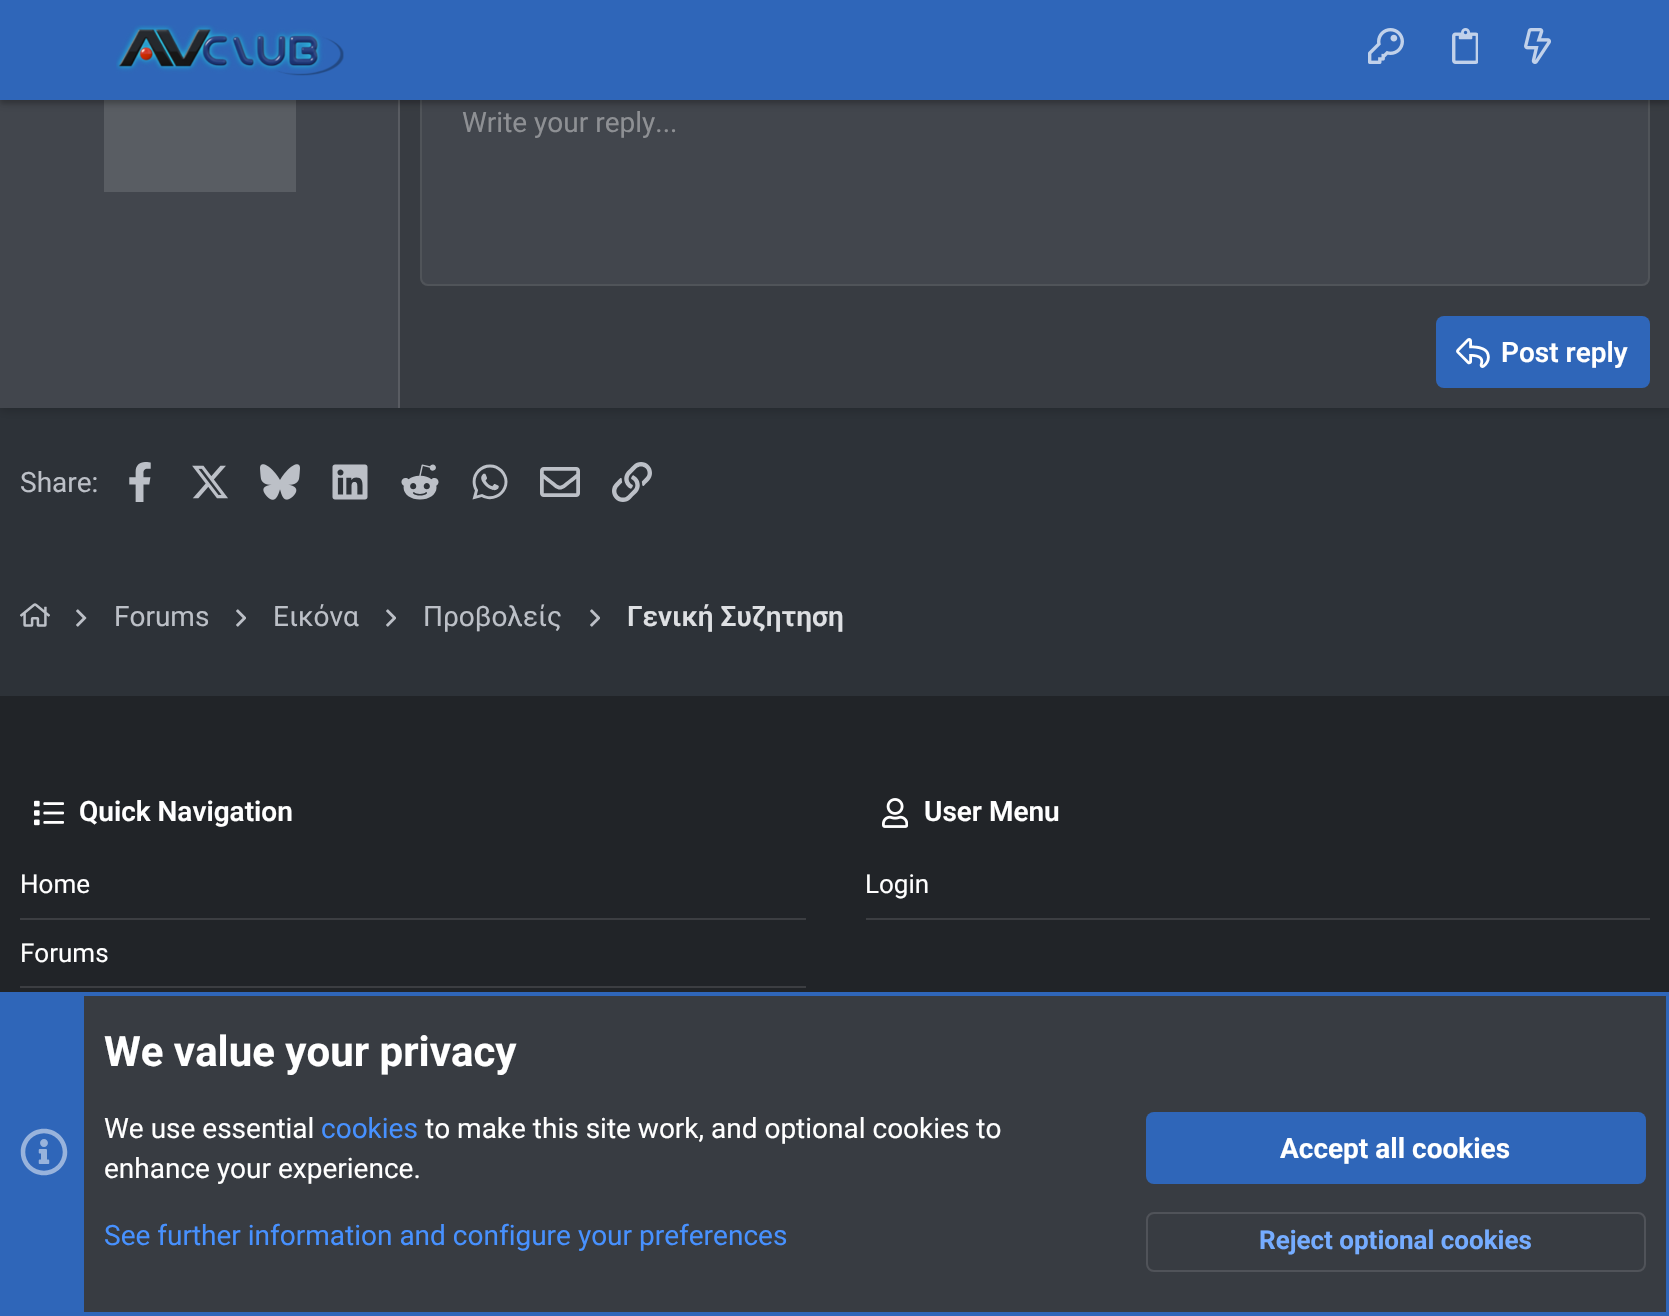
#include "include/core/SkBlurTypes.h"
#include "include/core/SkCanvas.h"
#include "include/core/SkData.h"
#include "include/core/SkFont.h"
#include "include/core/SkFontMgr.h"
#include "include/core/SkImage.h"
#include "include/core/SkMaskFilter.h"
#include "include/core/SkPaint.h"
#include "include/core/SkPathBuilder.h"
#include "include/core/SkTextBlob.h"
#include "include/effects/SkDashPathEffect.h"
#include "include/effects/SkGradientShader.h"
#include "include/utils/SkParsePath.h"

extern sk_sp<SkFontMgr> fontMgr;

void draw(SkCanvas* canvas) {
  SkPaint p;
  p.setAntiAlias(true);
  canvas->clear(SkColorSetRGB(45, 50, 56));
  p.setColor(SkColorSetARGB(51, 0, 0, 0));
  p.setMaskFilter(SkMaskFilter::MakeBlur(kNormal_SkBlurStyle, 5));
  canvas->drawRect(SkRect::MakeLTRB(0, -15, 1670, 410), p);
  p.setMaskFilter(nullptr);
  p.setColor(SkColorSetRGB(56, 60, 66));
  canvas->drawRect(SkRect::MakeLTRB(400, 100, 1669, 408), p);
  p.setColor(SkColorSetRGB(66, 70, 77));
  canvas->drawRect(SkRect::MakeLTRB(0, 100, 398, 408), p);
  p.setColor(SkColorSetRGB(89, 92, 98));
  canvas->drawRect(SkRect::MakeLTRB(398, 100, 400, 408), p);
  p.setColor(SkColorSetRGB(89, 93, 99));
  canvas->drawRect(SkRect::MakeLTRB(104, 100, 296, 192), p);
  p.setColor(SkColorSetRGB(66, 70, 77));
  canvas->drawRoundRect(SkRect::MakeLTRB(422, 2, 1648, 284), 6, 6, p);
  p.setStyle(SkPaint::kStroke_Style);
  p.setStrokeWidth(2);
  p.setColor(SkColorSetARGB(31, 255, 255, 255));
  canvas->drawRoundRect(SkRect::MakeLTRB(421, 1, 1649, 285), 7, 7, p);
  p.setStyle(SkPaint::kFill_Style);
  p.setColor(SkColorSetARGB(51, 0, 0, 0));
  p.setMaskFilter(SkMaskFilter::MakeBlur(kNormal_SkBlurStyle, 5));
  canvas->drawRect(SkRect::MakeLTRB(0, 2, 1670, 102), p);
  p.setMaskFilter(nullptr);
  p.setColor(SkColorSetARGB(36, 0, 0, 0));
  p.setMaskFilter(SkMaskFilter::MakeBlur(kNormal_SkBlurStyle, 2));
  canvas->drawRect(SkRect::MakeLTRB(0, 4, 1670, 104), p);
  p.setMaskFilter(nullptr);
  p.setColor(SkColorSetRGB(47, 102, 185));
  canvas->drawRect(SkRect::MakeLTRB(0, 0, 1669, 100), p);
  canvas->drawImageRect(SkImages::DeferredFromEncodedData(SkData::MakeFromFileName("images/1.png")), SkRect::MakeLTRB(116, 25, 344, 76), SkSamplingOptions());
  canvas->drawImageRect(SkImages::DeferredFromEncodedData(SkData::MakeFromFileName("images/2.png")), SkRect::MakeLTRB(1368, 28, 1404, 64), SkSamplingOptions());
  canvas->drawImageRect(SkImages::DeferredFromEncodedData(SkData::MakeFromFileName("images/3.png")), SkRect::MakeLTRB(1452, 28, 1478, 64), SkSamplingOptions());
  canvas->drawImageRect(SkImages::DeferredFromEncodedData(SkData::MakeFromFileName("images/4.png")), SkRect::MakeLTRB(1524, 28, 1551, 64), SkSamplingOptions());
  canvas->drawRoundRect(SkRect::MakeLTRB(1436, 316, 1650, 388), 8, 8, p);
  canvas->drawImageRect(SkImages::DeferredFromEncodedData(SkData::MakeFromFileName("images/5.png")), SkRect::MakeLTRB(1456, 338, 1490, 368), SkSamplingOptions());
  canvas->drawImageRect(SkImages::DeferredFromEncodedData(SkData::MakeFromFileName("images/6.png")), SkRect::MakeLTRB(129, 462, 151, 502), SkSamplingOptions());
  canvas->drawImageRect(SkImages::DeferredFromEncodedData(SkData::MakeFromFileName("images/7.png")), SkRect::MakeLTRB(192, 465, 228, 499), SkSamplingOptions());
  canvas->drawImageRect(SkImages::DeferredFromEncodedData(SkData::MakeFromFileName("images/8.png")), SkRect::MakeLTRB(260, 464, 300, 500), SkSamplingOptions());
  canvas->drawImageRect(SkImages::DeferredFromEncodedData(SkData::MakeFromFileName("images/9.png")), SkRect::MakeLTRB(332, 464, 368, 500), SkSamplingOptions());
  canvas->drawImageRect(SkImages::DeferredFromEncodedData(SkData::MakeFromFileName("images/10.png")), SkRect::MakeLTRB(401, 464, 439, 500), SkSamplingOptions());
  canvas->drawImageRect(SkImages::DeferredFromEncodedData(SkData::MakeFromFileName("images/11.png")), SkRect::MakeLTRB(472, 464, 508, 500), SkSamplingOptions());
  canvas->drawImageRect(SkImages::DeferredFromEncodedData(SkData::MakeFromFileName("images/12.png")), SkRect::MakeLTRB(540, 467, 580, 497), SkSamplingOptions());
  canvas->drawImageRect(SkImages::DeferredFromEncodedData(SkData::MakeFromFileName("images/13.png")), SkRect::MakeLTRB(612, 462, 652, 502), SkSamplingOptions());
  canvas->drawImageRect(SkImages::DeferredFromEncodedData(SkData::MakeFromFileName("images/14.png")), SkRect::MakeLTRB(20, 603, 50, 627), SkSamplingOptions());
  canvas->drawImageRect(SkImages::DeferredFromEncodedData(SkData::MakeFromFileName("images/15.png")), SkRect::MakeLTRB(76, 609, 87, 627), SkSamplingOptions());
  canvas->drawImageRect(SkImages::DeferredFromEncodedData(SkData::MakeFromFileName("images/16.png")), SkRect::MakeLTRB(236, 609, 246, 627), SkSamplingOptions());
  canvas->drawImageRect(SkImages::DeferredFromEncodedData(SkData::MakeFromFileName("images/16.png")), SkRect::MakeLTRB(386, 609, 396, 627), SkSamplingOptions());
  canvas->drawImageRect(SkImages::DeferredFromEncodedData(SkData::MakeFromFileName("images/16.png")), SkRect::MakeLTRB(590, 609, 600, 627), SkSamplingOptions());
  p.setColor(SkColorSetRGB(33, 36, 40));
  canvas->drawRect(SkRect::MakeLTRB(0, 696, 1669, 992), p);
  canvas->drawImageRect(SkImages::DeferredFromEncodedData(SkData::MakeFromFileName("images/17.png")), SkRect::MakeLTRB(34, 800, 64, 826), SkSamplingOptions());
  p.setColor(SkColorSetRGB(60, 62, 66));
  canvas->drawRect(SkRect::MakeLTRB(20, 918, 806, 920), p);
  canvas->drawRect(SkRect::MakeLTRB(20, 986, 806, 988), p);
  canvas->drawImageRect(SkImages::DeferredFromEncodedData(SkData::MakeFromFileName("images/18.png")), SkRect::MakeLTRB(882, 798, 908, 828), SkSamplingOptions());
  canvas->drawRect(SkRect::MakeLTRB(866, 918, 1650, 920), p);
  p.setColor(SkColorSetRGB(56, 60, 66));
  canvas->drawRect(SkRect::MakeLTRB(84, 996, 1666, 1312), p);
  p.setStyle(SkPaint::kStroke_Style);
  p.setStrokeWidth(4);
  p.setColor(SkColorSetRGB(47, 102, 185));
  canvas->drawRect(SkRect::MakeLTRB(2, 994, 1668, 1314), p);
  p.setStyle(SkPaint::kFill_Style);
  canvas->drawRect(SkRect::MakeLTRB(4, 996, 84, 1312), p);
  canvas->drawImageRect(SkImages::DeferredFromEncodedData(SkData::MakeFromFileName("images/19.png")), SkRect::MakeLTRB(20, 1128, 68, 1176), SkSamplingOptions());
  canvas->drawRoundRect(SkRect::MakeLTRB(1146, 1112, 1646, 1184), 8, 8, p);
  p.setStyle(SkPaint::kStroke_Style);
  p.setStrokeWidth(2);
  p.setColor(SkColorSetRGB(80, 83, 89));
  canvas->drawRoundRect(SkRect::MakeLTRB(1147, 1213, 1645, 1271), 7, 7, p);
  SkFont font1(fontMgr->matchFamilyStyle("Roboto", SkFontStyle::Normal()), 28);
  font1.setSubpixel(true);
  p.setStyle(SkPaint::kFill_Style);
  p.setColor(SkColorSetRGB(142, 144, 148));
  canvas->drawString("Write your reply...", 462, 132, font1, p);
  SkFont font2(fontMgr->matchFamilyStyle("Roboto", SkFontStyle(600, SkFontStyle::kNormal_Width, SkFontStyle::kUpright_Slant)), 28);
  font2.setSubpixel(true);
  p.setColor(SK_ColorWHITE);
  canvas->drawString("Post reply", 1501, 362, font2, p);
  p.setColor(SkColorSetRGB(188, 192, 199));
  canvas->drawString("Share:", 20, 492, font1, p);
  canvas->drawString("Forums", 114, 626, font1, p);
  canvas->drawString("Εικόνα", 273, 626, font1, p);
  canvas->drawString("Προβολείς", 423, 626, font1, p);
  p.setColor(SkColorSetRGB(222, 224, 227));
  canvas->drawString("Γενική Συζητηση", 627, 626, font2, p);
  p.setColor(SK_ColorWHITE);
  canvas->drawString("Quick Navigation", 79, 821, font2, p);
  SkFont font3(fontMgr->matchFamilyStyle("Roboto", SkFontStyle::Normal()), 26);
  font3.setSubpixel(true);
  canvas->drawString("Home", 20, 893, font3, p);
  canvas->drawString("Forums", 20, 962, font3, p);
  canvas->drawString("User Menu", 924, 821, font2, p);
  canvas->drawString("Login", 865, 893, font3, p);
  SkFont font4(fontMgr->matchFamilyStyle("Roboto", SkFontStyle::Bold()), 42);
  font4.setSubpixel(true);
  canvas->drawString("We value your privacy", 104, 1066, font4, p);
  canvas->drawString("We use essential", 104, 1138, font1, p);
  p.setColor(SkColorSetRGB(71, 145, 255));
  canvas->drawString("cookies", 321, 1138, font1, p);
  p.setColor(SK_ColorWHITE);
  canvas->drawString("to make this site work, and optional cookies to", 425, 1138, font1, p);
  canvas->drawString("enhance your experience.", 104, 1178, font1, p);
  p.setColor(SkColorSetRGB(71, 145, 255));
  canvas->drawString("See further information and configure your preferences", 104, 1245, font1, p);
  SkFont font5(fontMgr->matchFamilyStyle("Roboto", SkFontStyle::Bold()), 28);
  font5.setSubpixel(true);
  p.setColor(SK_ColorWHITE);
  canvas->drawString("Accept all cookies", 1280, 1158, font5, p);
  SkFont font6(fontMgr->matchFamilyStyle("Roboto", SkFontStyle::Bold()), 26);
  font6.setSubpixel(true);
  p.setColor(SkColorSetRGB(117, 172, 255));
  canvas->drawString("Reject optional cookies", 1259, 1249, font6, p);
}
